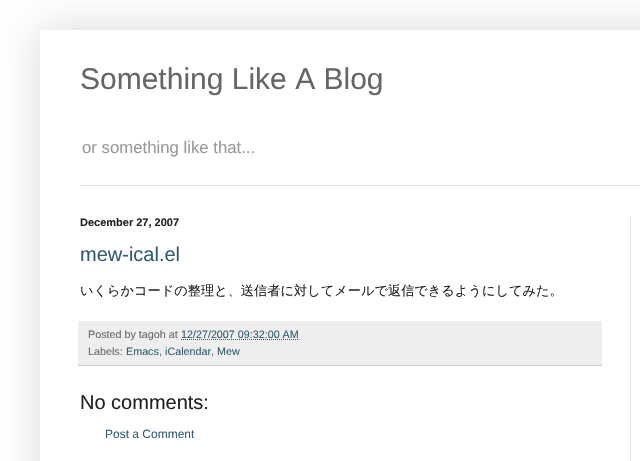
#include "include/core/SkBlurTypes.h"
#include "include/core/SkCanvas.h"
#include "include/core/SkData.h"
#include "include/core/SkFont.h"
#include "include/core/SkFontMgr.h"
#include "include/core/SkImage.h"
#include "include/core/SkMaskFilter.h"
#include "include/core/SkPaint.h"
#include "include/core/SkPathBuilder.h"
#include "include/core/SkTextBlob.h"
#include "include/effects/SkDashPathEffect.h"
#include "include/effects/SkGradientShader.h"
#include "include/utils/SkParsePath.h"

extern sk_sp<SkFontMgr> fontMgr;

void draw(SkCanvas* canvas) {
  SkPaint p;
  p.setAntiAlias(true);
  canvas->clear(SK_ColorWHITE);
  canvas->save();
  canvas->clipPath(SkPathBuilder(SkPathFillType::kEvenOdd).moveTo(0, 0).lineTo(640, 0).lineTo(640, 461).lineTo(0, 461).close().moveTo(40, 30).lineTo(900, 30).lineTo(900, 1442).lineTo(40, 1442).close().detach(), true);
  p.setColor(SkColorSetARGB(38, 0, 0, 0));
  p.setMaskFilter(SkMaskFilter::MakeBlur(kNormal_SkBlurStyle, 20));
  canvas->drawRect(SkRect::MakeLTRB(40, 30, 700, 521), p);
  p.setMaskFilter(nullptr);
  canvas->restore();
  p.setColor(SkColorSetRGB(229, 229, 229));
  canvas->drawRect(SkRect::MakeLTRB(80, 185, 640, 186), p);
  p.setColor(SkColorSetRGB(238, 238, 238));
  canvas->drawRect(SkRect::MakeLTRB(78, 321, 602, 365), p);
  p.setColor(SkColorSetRGB(204, 204, 204));
  canvas->drawRect(SkRect::MakeLTRB(78, 365, 602, 366), p);
  p.setStyle(SkPaint::kStroke_Style);
  p.setStrokeWidth(1);
  p.setColor(SkColorSetRGB(51, 93, 110));
  p.setPathEffect(SkDashPathEffect::Make({{1, 1}}, 0));
  canvas->drawPath(SkPathBuilder().moveTo(181, 339.5f).lineTo(299.5f, 339.5f).detach(), p);
  p.setPathEffect(nullptr);
  p.setStyle(SkPaint::kFill_Style);
  p.setColor(SkColorSetRGB(229, 229, 229));
  canvas->drawRect(SkRect::MakeLTRB(630, 216, 631, 461), p);
  SkFont font1(fontMgr->matchFamilyStyle("Liberation Sans", SkFontStyle::Normal()), 30);
  font1.setSubpixel(true);
  p.setColor(SkColorSetRGB(102, 102, 102));
  canvas->drawString("Something Like A Blog", 80, 89, font1, p);
  SkFont font2(fontMgr->matchFamilyStyle("Liberation Sans", SkFontStyle::Normal()), 16.75f);
  font2.setSubpixel(true);
  p.setColor(SkColorSetRGB(153, 153, 153));
  canvas->drawString("or something like that...", 82, 153, font2, p);
  SkFont font3(fontMgr->matchFamilyStyle("Liberation Sans", SkFontStyle::Bold()), 11);
  font3.setSubpixel(true);
  p.setColor(SkColorSetRGB(34, 34, 34));
  canvas->drawString("December 27, 2007", 80, 226, font3, p);
  SkFont font4(fontMgr->matchFamilyStyle("Liberation Sans", SkFontStyle::Normal()), 20);
  font4.setSubpixel(true);
  p.setColor(SkColorSetRGB(51, 93, 110));
  canvas->drawString("mew-ical.el", 80, 261, font4, p);
  SkFont font5(fontMgr->matchFamilyStyle("WenQuanYi Zen Hei", SkFontStyle(500, SkFontStyle::kNormal_Width, SkFontStyle::kUpright_Slant)), 13.2f);
  font5.setSubpixel(true);
  p.setColor(SkColorSetRGB(34, 34, 34));
  canvas->drawString("いくらかコードの整理と、送信者に対してメールで返信できるようにしてみた。", 80, 295, font5, p);
  SkFont font6(fontMgr->matchFamilyStyle("Liberation Sans", SkFontStyle::Normal()), 10.75f);
  font6.setSubpixel(true);
  p.setColor(SkColorSetRGB(102, 102, 102));
  canvas->drawString("Posted by tagoh at", 88, 338, font6, p);
  p.setColor(SkColorSetRGB(51, 93, 110));
  canvas->drawString("12/27/2007 09:32:00 AM", 181, 338, font6, p);
  p.setColor(SkColorSetRGB(102, 102, 102));
  canvas->drawString("Labels:", 88, 355, font6, p);
  p.setColor(SkColorSetRGB(51, 93, 110));
  canvas->drawString("Emacs", 126, 355, font6, p);
  p.setColor(SkColorSetRGB(102, 102, 102));
  canvas->drawString(",", 159, 355, font6, p);
  p.setColor(SkColorSetRGB(51, 93, 110));
  canvas->drawString("iCalendar", 165, 355, font6, p);
  p.setColor(SkColorSetRGB(102, 102, 102));
  canvas->drawString(",", 211, 355, font6, p);
  p.setColor(SkColorSetRGB(51, 93, 110));
  canvas->drawString("Mew", 217, 355, font6, p);
  p.setColor(SkColorSetRGB(34, 34, 34));
  canvas->drawString("No comments:", 80, 409, font4, p);
  SkFont font7(fontMgr->matchFamilyStyle("Liberation Sans", SkFontStyle::Normal()), 12);
  font7.setSubpixel(true);
  p.setColor(SkColorSetRGB(51, 93, 110));
  canvas->drawString("Post a Comment", 105, 438, font7, p);
}
